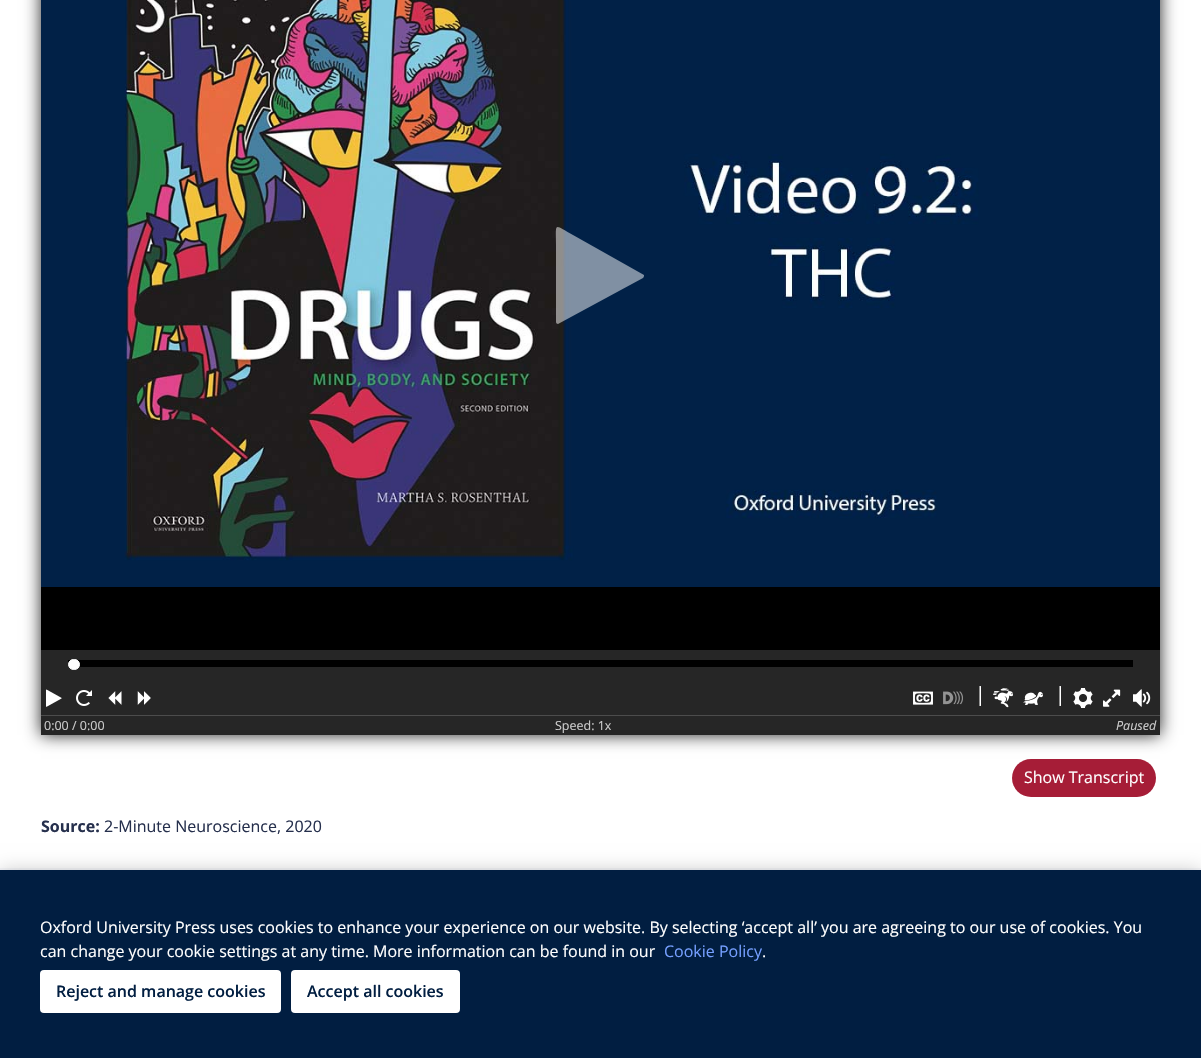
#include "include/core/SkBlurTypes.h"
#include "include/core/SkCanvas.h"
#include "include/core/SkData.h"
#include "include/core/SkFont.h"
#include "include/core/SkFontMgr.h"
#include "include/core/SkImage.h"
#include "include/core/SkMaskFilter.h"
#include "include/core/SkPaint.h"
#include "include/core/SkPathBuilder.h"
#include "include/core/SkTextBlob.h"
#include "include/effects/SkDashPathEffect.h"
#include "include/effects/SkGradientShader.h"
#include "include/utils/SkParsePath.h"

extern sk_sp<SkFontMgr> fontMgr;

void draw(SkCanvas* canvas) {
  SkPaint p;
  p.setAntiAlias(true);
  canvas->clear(SK_ColorWHITE);
  p.setColor(SkColorSetRGB(166, 29, 55));
  canvas->drawRoundRect(SkRect::MakeLTRB(1012, 759, 1156, 797), 19, 19, p);
  p.setColor(SkColorSetRGB(38, 38, 38));
  p.setMaskFilter(SkMaskFilter::MakeBlur(kNormal_SkBlurStyle, 8));
  canvas->drawRect(SkRect::MakeLTRB(41, -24, 1160, 735), p);
  p.setMaskFilter(nullptr);
  p.setColor(SK_ColorBLACK);
  canvas->drawRect(SkRect::MakeLTRB(41, 587, 1160, 650), p);
  canvas->drawImageRect(SkImages::DeferredFromEncodedData(SkData::MakeFromFileName("images/1.png")), SkRect::MakeLTRB(41, 0, 1160, 587), SkSamplingOptions());
  p.setColor(SkColorSetARGB(128, 253, 253, 253));
  canvas->drawPath(SkPathBuilder().moveTo(556, 322).lineTo(556, 245).cubicTo(556, 222, 553, 224, 573, 235).lineTo(644, 275).cubicTo(644, 276, 644, 277, 643, 278).lineTo(558, 324).cubicTo(557, 324, 556, 323, 556, 322).close().detach(), p);
  p.setColor(SkColorSetRGB(38, 38, 38));
  canvas->drawRect(SkRect::MakeLTRB(41, 650, 1160, 735), p);
  p.setColor(SkColorSetRGB(76, 76, 76));
  canvas->drawRect(SkRect::MakeLTRB(41, 715, 1160, 716), p);
  p.setColor(SK_ColorBLACK);
  canvas->drawRect(SkRect::MakeLTRB(68, 660, 1133, 667), p);
  p.setColor(SkColorSetRGB(253, 253, 253));
  canvas->drawRoundRect(SkRect::MakeLTRB(68.5f, 659.5f, 79.5f, 669.5f), 5, 5, p);
  p.setStyle(SkPaint::kStroke_Style);
  p.setStrokeWidth(1);
  p.setColor(SK_ColorWHITE);
  canvas->drawRoundRect(SkRect::MakeLTRB(68.5f, 659.5f, 79.5f, 669.5f), 5, 5, p);
  canvas->drawImageRect(SkImages::DeferredFromEncodedData(SkData::MakeFromFileName("images/2.png")), SkRect::MakeLTRB(46, 689, 62, 707), SkSamplingOptions());
  canvas->drawImageRect(SkImages::DeferredFromEncodedData(SkData::MakeFromFileName("images/3.png")), SkRect::MakeLTRB(76, 690, 92, 706), SkSamplingOptions());
  canvas->drawImageRect(SkImages::DeferredFromEncodedData(SkData::MakeFromFileName("images/4.png")), SkRect::MakeLTRB(108, 691, 122, 705), SkSamplingOptions());
  canvas->drawImageRect(SkImages::DeferredFromEncodedData(SkData::MakeFromFileName("images/5.png")), SkRect::MakeLTRB(137, 691, 151, 705), SkSamplingOptions());
  canvas->drawImageRect(SkImages::DeferredFromEncodedData(SkData::MakeFromFileName("images/6.png")), SkRect::MakeLTRB(913, 691, 933, 705), SkSamplingOptions());
  canvas->drawImageRect(SkImages::DeferredFromEncodedData(SkData::MakeFromFileName("images/7.png")), SkRect::MakeLTRB(943, 691, 963, 705), SkSamplingOptions());
  canvas->drawImageRect(SkImages::DeferredFromEncodedData(SkData::MakeFromFileName("images/8.png")), SkRect::MakeLTRB(979, 686, 981, 706), SkSamplingOptions());
  canvas->drawImageRect(SkImages::DeferredFromEncodedData(SkData::MakeFromFileName("images/9.png")), SkRect::MakeLTRB(993, 688, 1013, 708), SkSamplingOptions());
  canvas->drawImageRect(SkImages::DeferredFromEncodedData(SkData::MakeFromFileName("images/10.png")), SkRect::MakeLTRB(1023, 691, 1043, 705), SkSamplingOptions());
  canvas->drawImageRect(SkImages::DeferredFromEncodedData(SkData::MakeFromFileName("images/8.png")), SkRect::MakeLTRB(1059, 686, 1061, 706), SkSamplingOptions());
  canvas->drawImageRect(SkImages::DeferredFromEncodedData(SkData::MakeFromFileName("images/11.png")), SkRect::MakeLTRB(1073, 688, 1093, 708), SkSamplingOptions());
  canvas->drawImageRect(SkImages::DeferredFromEncodedData(SkData::MakeFromFileName("images/12.png")), SkRect::MakeLTRB(1103, 689, 1121, 707), SkSamplingOptions());
  canvas->drawImageRect(SkImages::DeferredFromEncodedData(SkData::MakeFromFileName("images/13.png")), SkRect::MakeLTRB(1133, 689, 1151, 707), SkSamplingOptions());
  p.setStyle(SkPaint::kFill_Style);
  p.setColor(SkColorSetRGB(245, 246, 250));
  canvas->drawRect(SkRect::MakeLTRB(0, 868, 1201, 870), p);
  p.setColor(SkColorSetARGB(51, 0, 0, 0));
  p.setMaskFilter(SkMaskFilter::MakeBlur(kNormal_SkBlurStyle, 9));
  canvas->drawRect(SkRect::MakeLTRB(0, 870, 1201, 1058), p);
  p.setMaskFilter(nullptr);
  p.setColor(SkColorSetRGB(1, 30, 65));
  canvas->drawRect(SkRect::MakeLTRB(0, 870, 1201, 1058), p);
  p.setColor(SK_ColorWHITE);
  canvas->drawRoundRect(SkRect::MakeLTRB(40, 970, 281, 1013), 4, 4, p);
  canvas->drawRoundRect(SkRect::MakeLTRB(291, 970, 460, 1013), 4, 4, p);
  SkFont font1(fontMgr->matchFamilyStyle("Open Sans", SkFontStyle::Normal()), 12.5f);
  font1.setSubpixel(true);
  p.setColor(SkColorSetRGB(204, 204, 204));
  canvas->drawString("0:00 / 0:00", 44, 730, font1, p);
  canvas->drawString("Speed: 1x", 555, 730, font1, p);
  SkFont font2(fontMgr->matchFamilyStyle("Open Sans", SkFontStyle::Italic()), 12.5f);
  font2.setSubpixel(true);
  canvas->drawString("Paused", 1116, 730, font2, p);
  SkFont font3(fontMgr->matchFamilyStyle("Open Sans", SkFontStyle::Normal()), 16);
  font3.setSubpixel(true);
  p.setColor(SK_ColorWHITE);
  canvas->drawString("Show Transcript", 1024, 783, font3, p);
  SkFont font4(fontMgr->matchFamilyStyle("Open Sans", SkFontStyle::Bold()), 16);
  font4.setSubpixel(true);
  p.setColor(SkColorSetRGB(38, 48, 77));
  canvas->drawString("Source:", 41, 832, font4, p);
  canvas->drawString("2-Minute Neuroscience, 2020", 104, 832, font3, p);
  p.setColor(SK_ColorWHITE);
  canvas->drawString("Oxford University Press uses cookies to enhance your experience on our website. By selecting ‘accept all’ you are agreeing to our use of cookies. You", 40, 933, font3, p);
  canvas->drawString("can change your cookie settings at any time. More information can be found in our", 40, 957, font3, p);
  p.setColor(SkColorSetRGB(117, 159, 255));
  canvas->drawString("Cookie Policy", 664, 957, font3, p);
  p.setColor(SK_ColorWHITE);
  canvas->drawString(".", 762, 957, font3, p);
  SkFont font5(fontMgr->matchFamilyStyle("Open Sans", SkFontStyle(600, SkFontStyle::kNormal_Width, SkFontStyle::kUpright_Slant)), 16);
  font5.setSubpixel(true);
  p.setColor(SkColorSetRGB(1, 30, 65));
  canvas->drawString("Reject and manage cookies", 56, 997, font5, p);
  canvas->drawString("Accept all cookies", 307, 997, font5, p);
}
